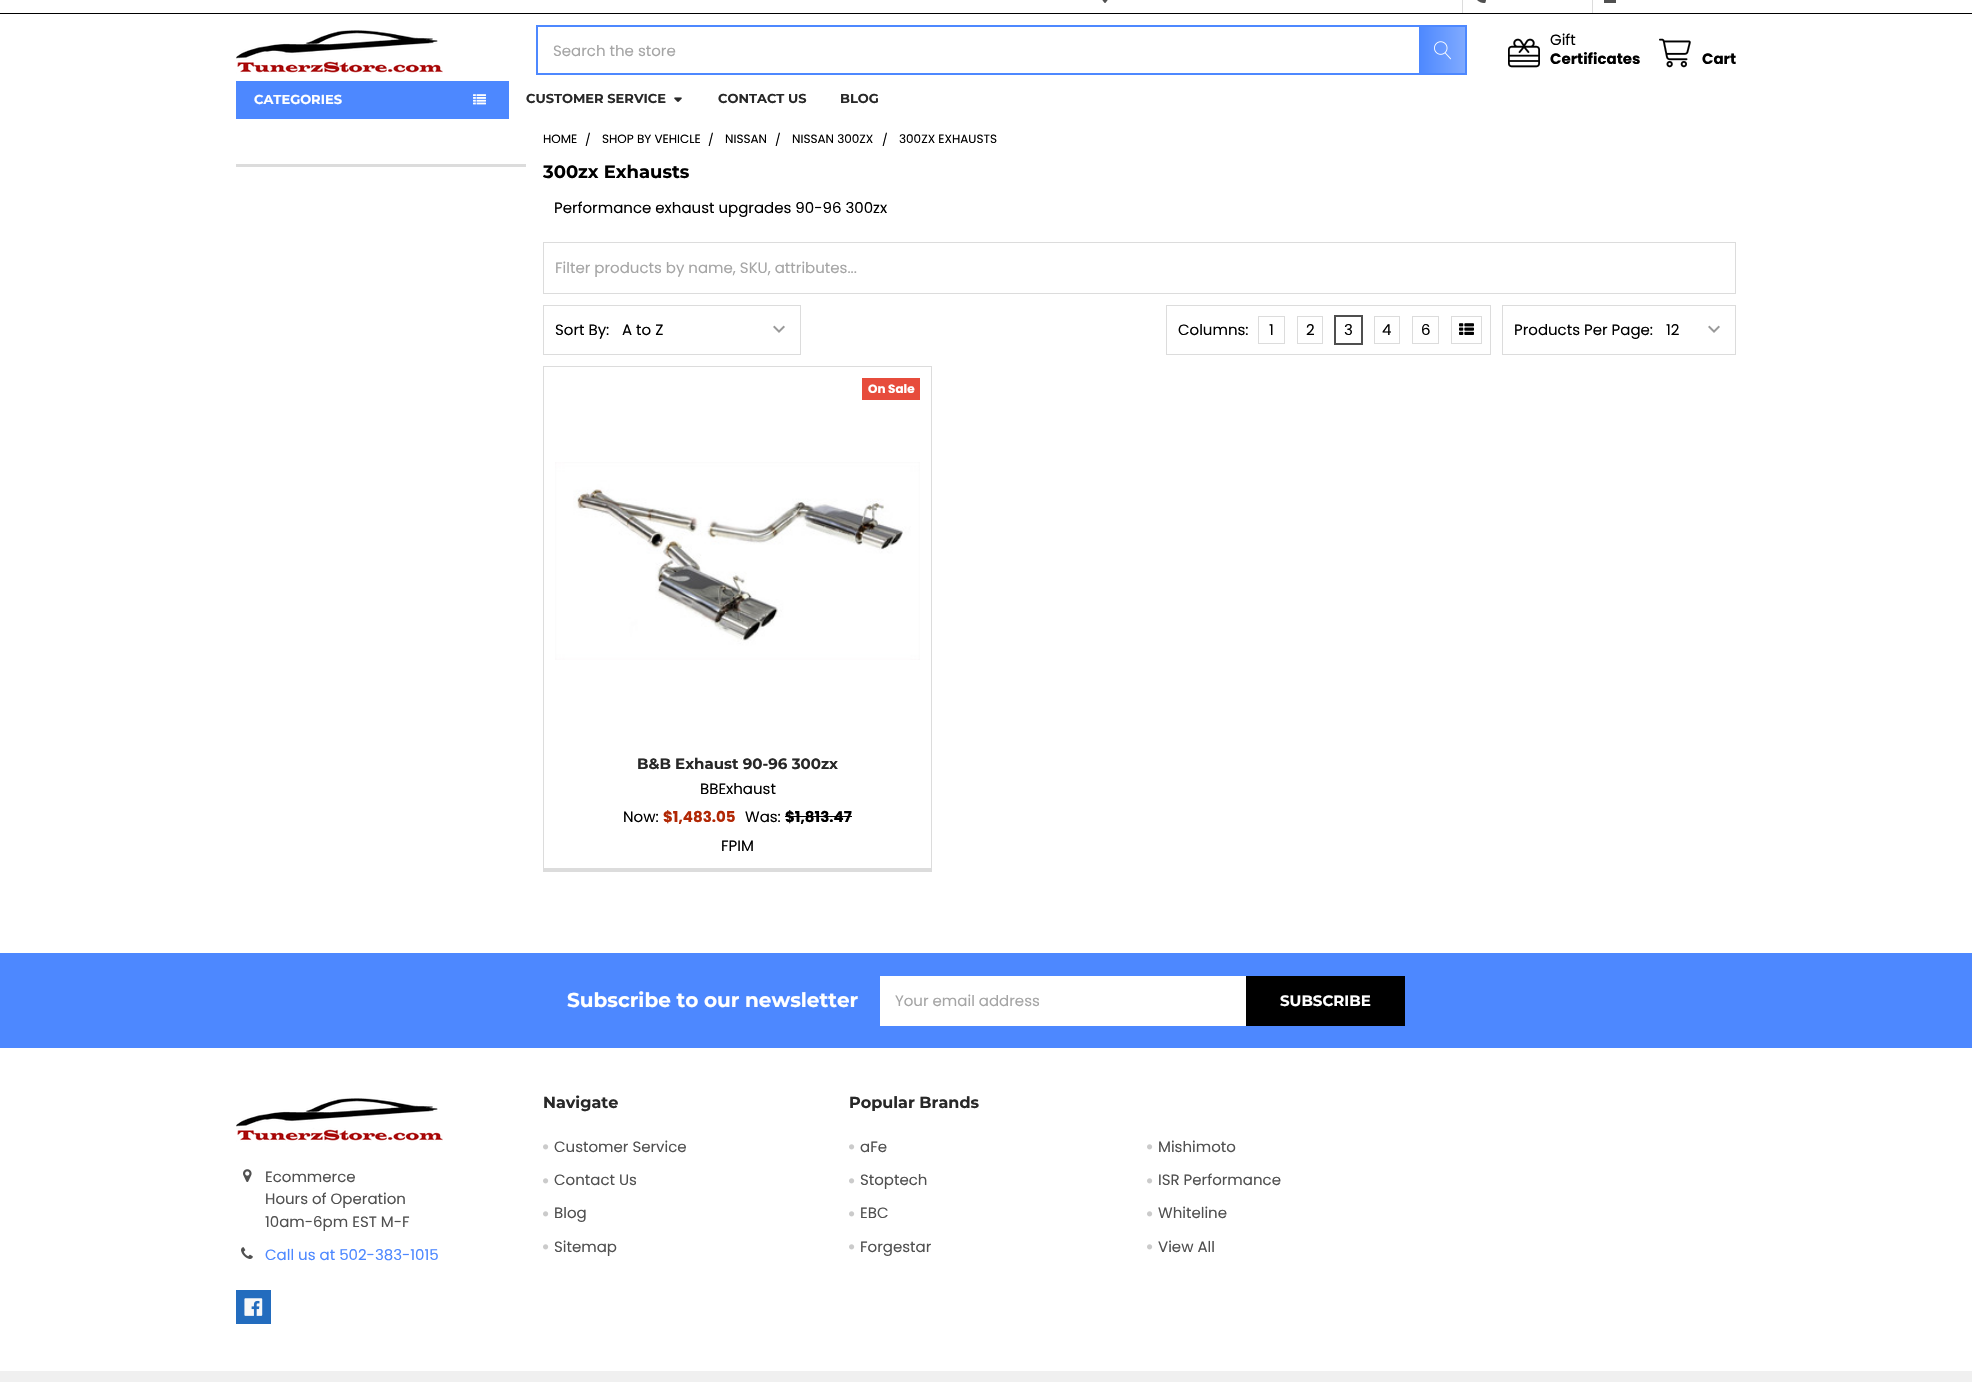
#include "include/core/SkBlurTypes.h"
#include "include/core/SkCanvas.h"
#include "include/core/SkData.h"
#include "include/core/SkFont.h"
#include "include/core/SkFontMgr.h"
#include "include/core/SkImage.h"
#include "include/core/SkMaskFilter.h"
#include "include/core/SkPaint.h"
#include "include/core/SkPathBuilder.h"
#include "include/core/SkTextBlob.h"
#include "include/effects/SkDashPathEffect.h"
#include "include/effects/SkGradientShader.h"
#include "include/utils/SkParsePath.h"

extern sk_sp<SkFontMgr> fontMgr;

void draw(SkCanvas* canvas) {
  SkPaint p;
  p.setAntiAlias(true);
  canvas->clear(SK_ColorWHITE);
  p.setColor(SK_ColorBLACK);
  canvas->drawRect(SkRect::MakeLTRB(0, 13, 1972, 14), p);
  canvas->drawImageRect(SkImages::DeferredFromEncodedData(SkData::MakeFromFileName("images/1.png")), SkRect::MakeLTRB(1102, 0, 1108, 3), SkSamplingOptions());
  p.setColor(SkColorSetRGB(220, 220, 220));
  canvas->drawRect(SkRect::MakeLTRB(1462, 0, 1463, 13), p);
  canvas->drawImageRect(SkImages::DeferredFromEncodedData(SkData::MakeFromFileName("images/2.png")), SkRect::MakeLTRB(1477, 0, 1486, 3), SkSamplingOptions());
  canvas->drawRect(SkRect::MakeLTRB(1592, 0, 1593, 13), p);
  p.setColor(SkColorSetRGB(80, 80, 80));
  canvas->drawRect(SkRect::MakeLTRB(1604, 0, 1616, 3), p);
  canvas->drawImageRect(SkImages::DeferredFromEncodedData(SkData::MakeFromFileName("images/3.png")), SkRect::MakeLTRB(236, 30, 443, 74), SkSamplingOptions());
  p.setStyle(SkPaint::kStroke_Style);
  p.setStrokeWidth(2);
  p.setColor(SkColorSetRGB(77, 136, 255));
  canvas->drawRect(SkRect::MakeLTRB(537, 26, 1466, 74), p);
  p.setStyle(SkPaint::kFill_Style);
  {
    const SkColor colors[] = {SkColorSetRGB(77, 136, 255), SkColorSetARGB(179, 77, 136, 255)};
    const float stops[] = {0, 1};
    const SkPoint ends[] = {{1419, 50}, {1467, 50}};
    p.setShader(SkGradientShader::MakeLinear(ends, colors, stops, 2, SkTileMode::kClamp));
    p.setAlpha(255);
  }
  canvas->drawRect(SkRect::MakeLTRB(1419, 27, 1465, 73), p);
  canvas->drawImageRect(SkImages::DeferredFromEncodedData(SkData::MakeFromFileName("images/4.png")), SkRect::MakeLTRB(1434, 41, 1451, 60), SkSamplingOptions());
  canvas->drawImageRect(SkImages::DeferredFromEncodedData(SkData::MakeFromFileName("images/5.png")), SkRect::MakeLTRB(1508, 38, 1540, 68), SkSamplingOptions());
  canvas->drawImageRect(SkImages::DeferredFromEncodedData(SkData::MakeFromFileName("images/6.png")), SkRect::MakeLTRB(1659, 38, 1691, 68), SkSamplingOptions());
  p.setShader(nullptr);
  p.setColor(SkColorSetRGB(77, 136, 255));
  canvas->drawRect(SkRect::MakeLTRB(236, 81, 509, 119), p);
  canvas->drawImageRect(SkImages::DeferredFromEncodedData(SkData::MakeFromFileName("images/7.png")), SkRect::MakeLTRB(473, 94, 486, 105), SkSamplingOptions());
  canvas->drawImageRect(SkImages::DeferredFromEncodedData(SkData::MakeFromFileName("images/8.png")), SkRect::MakeLTRB(674, 97, 682, 102), SkSamplingOptions());
  p.setColor(SkColorSetRGB(220, 220, 220));
  canvas->drawRect(SkRect::MakeLTRB(236, 164, 526, 167), p);
  p.setStyle(SkPaint::kStroke_Style);
  p.setStrokeWidth(1);
  canvas->drawRect(SkRect::MakeLTRB(543.5f, 242.5f, 1735.5f, 293.5f), p);
  canvas->drawRect(SkRect::MakeLTRB(543.5f, 305.5f, 800.5f, 354.5f), p);
  canvas->drawImageRect(SkImages::DeferredFromEncodedData(SkData::MakeFromFileName("images/9.png")), SkRect::MakeLTRB(773, 325, 785, 333), SkSamplingOptions());
  canvas->drawRect(SkRect::MakeLTRB(1166.5f, 305.5f, 1490.5f, 354.5f), p);
  canvas->drawRect(SkRect::MakeLTRB(1258.5f, 316.5f, 1284.5f, 343.5f), p);
  canvas->drawRect(SkRect::MakeLTRB(1297.5f, 316.5f, 1322.5f, 343.5f), p);
  p.setColor(SkColorSetRGB(79, 79, 79));
  canvas->drawRect(SkRect::MakeLTRB(1334.5f, 315.5f, 1362.5f, 344.5f), p);
  canvas->drawRect(SkRect::MakeLTRB(1335.5f, 316.5f, 1361.5f, 343.5f), p);
  p.setColor(SkColorSetRGB(220, 220, 220));
  canvas->drawRect(SkRect::MakeLTRB(1374.5f, 316.5f, 1399.5f, 343.5f), p);
  canvas->drawRect(SkRect::MakeLTRB(1412.5f, 316.5f, 1438.5f, 343.5f), p);
  canvas->drawRect(SkRect::MakeLTRB(1451.5f, 316.5f, 1481.5f, 343.5f), p);
  canvas->drawImageRect(SkImages::DeferredFromEncodedData(SkData::MakeFromFileName("images/10.png")), SkRect::MakeLTRB(1459, 323, 1474, 335), SkSamplingOptions());
  canvas->drawRect(SkRect::MakeLTRB(1502.5f, 305.5f, 1735.5f, 354.5f), p);
  canvas->drawImageRect(SkImages::DeferredFromEncodedData(SkData::MakeFromFileName("images/9.png")), SkRect::MakeLTRB(1708, 325, 1720, 333), SkSamplingOptions());
  p.setStyle(SkPaint::kFill_Style);
  canvas->drawRect(SkRect::MakeLTRB(543, 869, 932, 872), p);
  p.setStyle(SkPaint::kStroke_Style);
  canvas->drawRect(SkRect::MakeLTRB(543.5f, 366.5f, 931.5f, 868.5f), p);
  p.setStyle(SkPaint::kFill_Style);
  p.setColor(SkColorSetRGB(231, 76, 60));
  canvas->drawRect(SkRect::MakeLTRB(862, 378, 920, 400), p);
  canvas->drawImageRect(SkImages::DeferredFromEncodedData(SkData::MakeFromFileName("images/11.png")), SkRect::MakeLTRB(555, 462, 920, 660), SkSamplingOptions());
  p.setColor(SK_ColorBLACK);
  canvas->drawRect(SkRect::MakeLTRB(785, 816, 852, 817), p);
  p.setColor(SkColorSetRGB(77, 136, 255));
  canvas->drawRect(SkRect::MakeLTRB(0, 953, 1972, 1048), p);
  p.setColor(SK_ColorWHITE);
  canvas->drawRect(SkRect::MakeLTRB(880, 976, 1246, 1026), p);
  p.setColor(SK_ColorBLACK);
  canvas->drawRect(SkRect::MakeLTRB(1246, 976, 1405, 1026), p);
  canvas->drawImageRect(SkImages::DeferredFromEncodedData(SkData::MakeFromFileName("images/3.png")), SkRect::MakeLTRB(236, 1098, 443, 1142), SkSamplingOptions());
  canvas->drawImageRect(SkImages::DeferredFromEncodedData(SkData::MakeFromFileName("images/12.png")), SkRect::MakeLTRB(243, 1169, 252, 1182), SkSamplingOptions());
  canvas->drawImageRect(SkImages::DeferredFromEncodedData(SkData::MakeFromFileName("images/13.png")), SkRect::MakeLTRB(241, 1247, 253, 1259), SkSamplingOptions());
  p.setColor(SkColorSetRGB(35, 108, 190));
  canvas->drawRect(SkRect::MakeLTRB(236, 1290, 271, 1324), p);
  canvas->drawImageRect(SkImages::DeferredFromEncodedData(SkData::MakeFromFileName("images/14.png")), SkRect::MakeLTRB(244, 1298, 263, 1316), SkSamplingOptions());
  canvas->drawImageRect(SkImages::DeferredFromEncodedData(SkData::MakeFromFileName("images/15.png")), SkRect::MakeLTRB(543, 1144, 549, 1150), SkSamplingOptions());
  canvas->drawImageRect(SkImages::DeferredFromEncodedData(SkData::MakeFromFileName("images/15.png")), SkRect::MakeLTRB(543, 1178, 549, 1184), SkSamplingOptions());
  canvas->drawImageRect(SkImages::DeferredFromEncodedData(SkData::MakeFromFileName("images/15.png")), SkRect::MakeLTRB(543, 1211, 549, 1217), SkSamplingOptions());
  canvas->drawImageRect(SkImages::DeferredFromEncodedData(SkData::MakeFromFileName("images/15.png")), SkRect::MakeLTRB(543, 1244, 549, 1250), SkSamplingOptions());
  canvas->drawImageRect(SkImages::DeferredFromEncodedData(SkData::MakeFromFileName("images/15.png")), SkRect::MakeLTRB(849, 1144, 855, 1150), SkSamplingOptions());
  canvas->drawImageRect(SkImages::DeferredFromEncodedData(SkData::MakeFromFileName("images/15.png")), SkRect::MakeLTRB(1147, 1144, 1153, 1150), SkSamplingOptions());
  canvas->drawImageRect(SkImages::DeferredFromEncodedData(SkData::MakeFromFileName("images/15.png")), SkRect::MakeLTRB(849, 1178, 855, 1184), SkSamplingOptions());
  canvas->drawImageRect(SkImages::DeferredFromEncodedData(SkData::MakeFromFileName("images/15.png")), SkRect::MakeLTRB(1147, 1178, 1153, 1184), SkSamplingOptions());
  canvas->drawImageRect(SkImages::DeferredFromEncodedData(SkData::MakeFromFileName("images/15.png")), SkRect::MakeLTRB(849, 1211, 855, 1217), SkSamplingOptions());
  canvas->drawImageRect(SkImages::DeferredFromEncodedData(SkData::MakeFromFileName("images/15.png")), SkRect::MakeLTRB(1147, 1211, 1153, 1217), SkSamplingOptions());
  canvas->drawImageRect(SkImages::DeferredFromEncodedData(SkData::MakeFromFileName("images/15.png")), SkRect::MakeLTRB(849, 1244, 855, 1250), SkSamplingOptions());
  canvas->drawImageRect(SkImages::DeferredFromEncodedData(SkData::MakeFromFileName("images/15.png")), SkRect::MakeLTRB(1147, 1244, 1153, 1250), SkSamplingOptions());
  p.setColor(SkColorSetRGB(240, 240, 240));
  canvas->drawRect(SkRect::MakeLTRB(0, 1371, 1972, 1382), p);
  SkFont font1(fontMgr->matchFamilyStyle("Poppins", SkFontStyle::Normal()), 15);
  font1.setSubpixel(true);
  p.setColor(SkColorSetRGB(165, 165, 165));
  canvas->drawString("Search the store", 553, 56, font1, p);
  p.setColor(SK_ColorBLACK);
  canvas->drawString("Gift", 1550, 45, font1, p);
  SkFont font2(fontMgr->matchFamilyStyle("Poppins", SkFontStyle::Bold()), 15);
  font2.setSubpixel(true);
  canvas->drawString("Certificates", 1550, 64, font2, p);
  canvas->drawString("Cart", 1702, 64, font2, p);
  SkFont font3(fontMgr->matchFamilyStyle("Montserrat", SkFontStyle(100, SkFontStyle::kNormal_Width, SkFontStyle::kUpright_Slant)), 13);
  font3.setSubpixel(true);
  p.setColor(SK_ColorWHITE);
  canvas->drawString("CATEGORIES", 254, 104, font3, p);
  p.setColor(SkColorSetRGB(40, 40, 40));
  canvas->drawString("CUSTOMER SERVICE", 526, 103, font3, p);
  canvas->drawString("CONTACT US", 718, 103, font3, p);
  canvas->drawString("BLOG", 840, 103, font3, p);
  SkFont font4(fontMgr->matchFamilyStyle("Poppins", SkFontStyle::Normal()), 12);
  font4.setSubpixel(true);
  p.setColor(SK_ColorBLACK);
  canvas->drawString("HOME", 543, 143, font4, p);
  canvas->drawString("/", 585, 144, font4, p);
  canvas->drawString("SHOP BY VEHICLE", 602, 143, font4, p);
  canvas->drawString("/", 708, 144, font4, p);
  canvas->drawString("NISSAN", 725, 143, font4, p);
  canvas->drawString("/", 775, 144, font4, p);
  canvas->drawString("NISSAN 300ZX", 792, 143, font4, p);
  canvas->drawString("/", 882, 144, font4, p);
  canvas->drawString("300ZX EXHAUSTS", 899, 143, font4, p);
  SkFont font5(fontMgr->matchFamilyStyle("Montserrat", SkFontStyle(100, SkFontStyle::kNormal_Width, SkFontStyle::kUpright_Slant)), 18);
  font5.setSubpixel(true);
  canvas->drawString("300zx Exhausts", 543, 178, font5, p);
  canvas->drawString("Performance exhaust upgrades 90-96 300zx", 554, 213, font1, p);
  p.setColor(SkColorSetRGB(165, 165, 165));
  canvas->drawString("Filter products by name, SKU, attributes...", 555, 273, font1, p);
  p.setColor(SK_ColorBLACK);
  canvas->drawString("Sort By:", 555, 335, font1, p);
  canvas->drawString("A to Z", 622, 335, font1, p);
  canvas->drawString("Columns:", 1178, 335, font1, p);
  canvas->drawString("1", 1269, 335, font1, p);
  canvas->drawString("2", 1306, 335, font1, p);
  canvas->drawString("3", 1344, 335, font1, p);
  canvas->drawString("4", 1382, 335, font1, p);
  canvas->drawString("6", 1421, 335, font1, p);
  canvas->drawString("Products Per Page:", 1514, 335, font1, p);
  canvas->drawString("12", 1666, 335, font1, p);
  SkFont font6(fontMgr->matchFamilyStyle("Poppins", SkFontStyle::Bold()), 12);
  font6.setSubpixel(true);
  p.setColor(SK_ColorWHITE);
  canvas->drawString("On Sale", 868, 393, font6, p);
  SkFont font7(fontMgr->matchFamilyStyle("Montserrat", SkFontStyle(100, SkFontStyle::kNormal_Width, SkFontStyle::kUpright_Slant)), 15);
  font7.setSubpixel(true);
  p.setColor(SkColorSetRGB(40, 40, 40));
  canvas->drawString("B&B Exhaust 90-96 300zx", 637, 769, font7, p);
  p.setColor(SK_ColorBLACK);
  canvas->drawString("BBExhaust", 700, 794, font1, p);
  canvas->drawString("Now:", 623, 822, font1, p);
  p.setColor(SkColorSetRGB(177, 39, 4));
  canvas->drawString("$1,483.05", 663, 822, font2, p);
  p.setColor(SK_ColorBLACK);
  canvas->drawString("Was:", 745, 822, font1, p);
  canvas->drawString("$1,813.47", 785, 822, font2, p);
  canvas->drawString("FPIM", 721, 851, font1, p);
  SkFont font8(fontMgr->matchFamilyStyle("Montserrat", SkFontStyle(100, SkFontStyle::kNormal_Width, SkFontStyle::kUpright_Slant)), 20);
  font8.setSubpixel(true);
  p.setColor(SK_ColorWHITE);
  canvas->drawString("Subscribe to our newsletter", 567, 1007, font8, p);
  p.setColor(SkColorSetRGB(165, 165, 165));
  canvas->drawString("Your email address", 895, 1006, font1, p);
  p.setColor(SK_ColorWHITE);
  canvas->drawString("SUBSCRIBE", 1280, 1006, font7, p);
  p.setColor(SkColorSetRGB(80, 80, 80));
  canvas->drawString("Ecommerce", 265, 1182, font1, p);
  canvas->drawString("Hours of Operation", 265, 1204, font1, p);
  canvas->drawString("10am-6pm EST M-F", 265, 1227, font1, p);
  p.setColor(SkColorSetRGB(77, 136, 255));
  canvas->drawString("Call us at 502-383-1015", 265, 1260, font1, p);
  SkFont font9(fontMgr->matchFamilyStyle("Montserrat", SkFontStyle(100, SkFontStyle::kNormal_Width, SkFontStyle::kUpright_Slant)), 16);
  font9.setSubpixel(true);
  p.setColor(SkColorSetRGB(40, 40, 40));
  canvas->drawString("Navigate", 543, 1108, font9, p);
  p.setColor(SkColorSetRGB(80, 80, 80));
  canvas->drawString("Customer Service", 554, 1152, font1, p);
  canvas->drawString("Contact Us", 554, 1185, font1, p);
  canvas->drawString("Blog", 554, 1218, font1, p);
  canvas->drawString("Sitemap", 554, 1252, font1, p);
  p.setColor(SkColorSetRGB(40, 40, 40));
  canvas->drawString("Popular Brands", 849, 1108, font9, p);
  p.setColor(SkColorSetRGB(80, 80, 80));
  canvas->drawString("aFe", 860, 1152, font1, p);
  canvas->drawString("Mishimoto", 1158, 1152, font1, p);
  canvas->drawString("Stoptech", 860, 1185, font1, p);
  canvas->drawString("ISR Performance", 1158, 1185, font1, p);
  canvas->drawString("EBC", 860, 1218, font1, p);
  canvas->drawString("Whiteline", 1158, 1218, font1, p);
  canvas->drawString("Forgestar", 860, 1252, font1, p);
  canvas->drawString("View All", 1158, 1252, font1, p);
}
